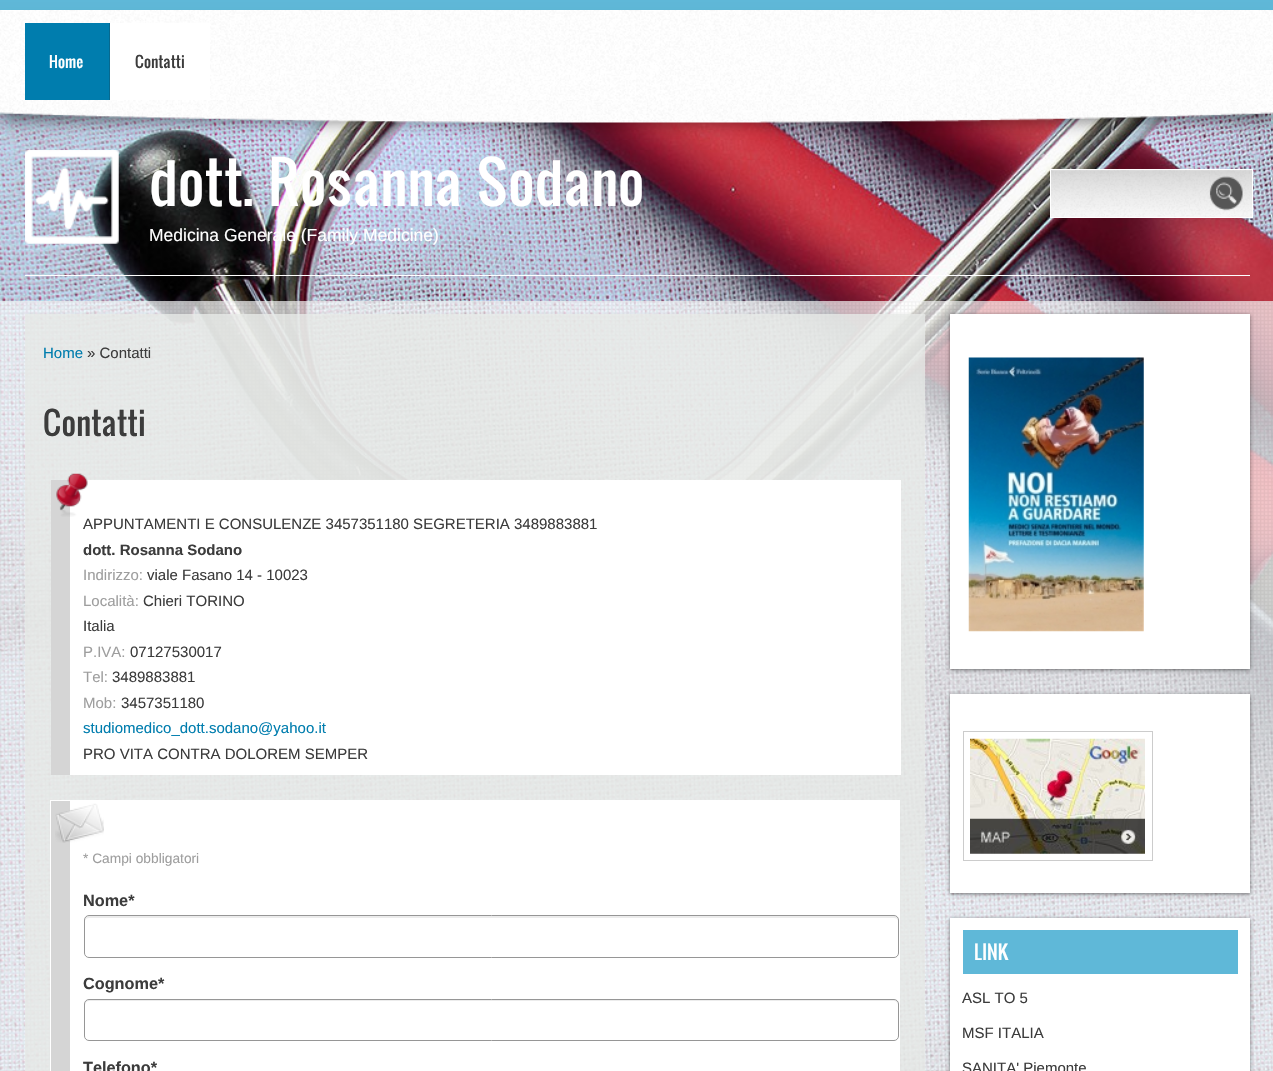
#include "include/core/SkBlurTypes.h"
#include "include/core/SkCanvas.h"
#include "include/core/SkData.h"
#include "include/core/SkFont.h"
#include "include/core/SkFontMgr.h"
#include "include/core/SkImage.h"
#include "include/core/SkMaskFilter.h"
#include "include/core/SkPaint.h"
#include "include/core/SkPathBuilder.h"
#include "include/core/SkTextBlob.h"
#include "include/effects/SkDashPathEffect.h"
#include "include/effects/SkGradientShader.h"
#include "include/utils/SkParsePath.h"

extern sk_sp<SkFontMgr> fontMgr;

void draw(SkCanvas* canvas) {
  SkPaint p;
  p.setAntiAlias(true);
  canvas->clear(SK_ColorWHITE);
  canvas->drawImageRect(SkImages::DeferredFromEncodedData(SkData::MakeFromFileName("images/1.png")), SkRect::MakeLTRB(0, 112, 1273, 1071), SkSamplingOptions());
  p.setColor(SkColorSetRGB(95, 184, 216));
  canvas->drawRect(SkRect::MakeLTRB(0, 0, 1273, 10), p);
  p.setColor(SkColorSetARGB(153, 0, 0, 0));
  p.setMaskFilter(SkMaskFilter::MakeBlur(kNormal_SkBlurStyle, 9));
  canvas->drawRect(SkRect::MakeLTRB(0, 29, 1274, 119), p);
  p.setMaskFilter(nullptr);
  p.setColor(SK_ColorWHITE);
  canvas->drawRect(SkRect::MakeLTRB(0, 10, 1273, 100), p);
  canvas->drawImageRect(SkImages::DeferredFromEncodedData(SkData::MakeFromFileName("images/2.png")), SkRect::MakeLTRB(0, 10, 1273, 100), SkSamplingOptions());
  canvas->drawImageRect(SkImages::DeferredFromEncodedData(SkData::MakeFromFileName("images/3.png")), SkRect::MakeLTRB(0, 100, 1273, 123), SkSamplingOptions());
  p.setColor(SkColorSetRGB(0, 125, 174));
  canvas->drawRect(SkRect::MakeLTRB(25, 23, 109, 100), p);
  p.setColor(SkColorSetRGB(7, 105, 143));
  canvas->drawRect(SkRect::MakeLTRB(109, 23, 110, 100), p);
  p.setColor(SK_ColorWHITE);
  canvas->drawRect(SkRect::MakeLTRB(110, 23, 210, 100), p);
  canvas->drawRect(SkRect::MakeLTRB(25, 275, 1250, 276), p);
  canvas->drawImageRect(SkImages::DeferredFromEncodedData(SkData::MakeFromFileName("images/4.png")), SkRect::MakeLTRB(25, 150, 119, 244), SkSamplingOptions());
  canvas->drawRect(SkRect::MakeLTRB(1051, 170, 1252, 217), p);
  canvas->drawImageRect(SkImages::DeferredFromEncodedData(SkData::MakeFromFileName("images/5.png")), SkRect::MakeLTRB(1051, 170, 1252, 217), SkSamplingOptions());
  p.setStyle(SkPaint::kStroke_Style);
  p.setStrokeWidth(1);
  canvas->drawRect(SkRect::MakeLTRB(1050.5f, 169.5f, 1252.5f, 217.5f), p);
  canvas->drawImageRect(SkImages::DeferredFromEncodedData(SkData::MakeFromFileName("images/6.png")), SkRect::MakeLTRB(1209, 176, 1243, 211), SkSamplingOptions());
  p.setStyle(SkPaint::kFill_Style);
  p.setColor(SkColorSetARGB(179, 255, 255, 255));
  canvas->drawRect(SkRect::MakeLTRB(0, 301, 1273, 1071), p);
  canvas->drawImageRect(SkImages::DeferredFromEncodedData(SkData::MakeFromFileName("images/7.png")), SkRect::MakeLTRB(0, 301, 1273, 1071), SkSamplingOptions());
  p.setColor(SkColorSetARGB(204, 230, 233, 230));
  canvas->drawRect(SkRect::MakeLTRB(25, 314, 925, 1071), p);
  p.setColor(SkColorSetRGB(213, 213, 213));
  canvas->drawRect(SkRect::MakeLTRB(51, 480, 70, 775), p);
  p.setColor(SK_ColorWHITE);
  canvas->drawRect(SkRect::MakeLTRB(70, 480, 901, 775), p);
  canvas->drawImageRect(SkImages::DeferredFromEncodedData(SkData::MakeFromFileName("images/8.png")), SkRect::MakeLTRB(56, 473, 88, 517), SkSamplingOptions());
  canvas->drawRect(SkRect::MakeLTRB(50, 800, 900, 1071), p);
  p.setColor(SkColorSetRGB(213, 213, 213));
  canvas->drawRect(SkRect::MakeLTRB(51, 801, 70, 1071), p);
  canvas->drawImageRect(SkImages::DeferredFromEncodedData(SkData::MakeFromFileName("images/9.png")), SkRect::MakeLTRB(55, 803, 104, 843), SkSamplingOptions());
  p.setColor(SkColorSetRGB(236, 236, 236));
  canvas->drawPath(SkPathBuilder().moveTo(89, 918).lineTo(894, 918).cubicTo(896, 918, 898, 919, 898, 921).cubicTo(898, 918, 897, 916, 894, 916).lineTo(89, 916).cubicTo(86, 916, 85, 918, 85, 921).cubicTo(85, 919, 87, 918, 89, 918).close().detach(), p);
  p.setStyle(SkPaint::kStroke_Style);
  p.setColor(SkColorSetRGB(150, 150, 150));
  canvas->drawRoundRect(SkRect::MakeLTRB(84.5f, 915.5f, 898.5f, 957.5f), 4.5f, 4.5f, p);
  p.setStyle(SkPaint::kFill_Style);
  p.setColor(SkColorSetRGB(236, 236, 236));
  canvas->drawPath(SkPathBuilder().moveTo(89, 1001).lineTo(894, 1001).cubicTo(896, 1001, 898, 1003, 898, 1005).cubicTo(898, 1002, 897, 1000, 894, 1000).lineTo(89, 1000).cubicTo(86, 1000, 85, 1002, 85, 1005).cubicTo(85, 1003, 87, 1001, 89, 1001).close().detach(), p);
  p.setStyle(SkPaint::kStroke_Style);
  p.setColor(SkColorSetRGB(150, 150, 150));
  canvas->drawRoundRect(SkRect::MakeLTRB(84.5f, 999.5f, 898.5f, 1040.5f), 4.5f, 4.5f, p);
  p.setStyle(SkPaint::kFill_Style);
  p.setColor(SkColorSetARGB(128, 0, 0, 0));
  p.setMaskFilter(SkMaskFilter::MakeBlur(kNormal_SkBlurStyle, 2));
  canvas->drawRect(SkRect::MakeLTRB(950, 315, 1250, 670), p);
  p.setMaskFilter(nullptr);
  p.setColor(SK_ColorWHITE);
  canvas->drawRect(SkRect::MakeLTRB(950, 314, 1250, 669), p);
  canvas->drawImageRect(SkImages::DeferredFromEncodedData(SkData::MakeFromFileName("images/10.png")), SkRect::MakeLTRB(968, 357, 1144, 632), SkSamplingOptions());
  p.setColor(SkColorSetARGB(128, 0, 0, 0));
  p.setMaskFilter(SkMaskFilter::MakeBlur(kNormal_SkBlurStyle, 2));
  canvas->drawRect(SkRect::MakeLTRB(950, 695, 1250, 894), p);
  p.setMaskFilter(nullptr);
  p.setColor(SK_ColorWHITE);
  canvas->drawRect(SkRect::MakeLTRB(950, 694, 1250, 893), p);
  p.setStyle(SkPaint::kStroke_Style);
  p.setColor(SkColorSetRGB(204, 204, 204));
  canvas->drawRect(SkRect::MakeLTRB(963.5f, 731.5f, 1152.5f, 860.5f), p);
  canvas->drawImageRect(SkImages::DeferredFromEncodedData(SkData::MakeFromFileName("images/11.png")), SkRect::MakeLTRB(970, 738, 1145, 854), SkSamplingOptions());
  p.setStyle(SkPaint::kFill_Style);
  p.setColor(SkColorSetARGB(128, 0, 0, 0));
  p.setMaskFilter(SkMaskFilter::MakeBlur(kNormal_SkBlurStyle, 2));
  canvas->drawRect(SkRect::MakeLTRB(950, 919, 1250, 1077), p);
  p.setMaskFilter(nullptr);
  p.setColor(SK_ColorWHITE);
  canvas->drawRect(SkRect::MakeLTRB(950, 918, 1250, 1071), p);
  p.setColor(SkColorSetRGB(95, 184, 216));
  canvas->drawRect(SkRect::MakeLTRB(963, 930, 1238, 974), p);
  SkFont font1(fontMgr->matchFamilyStyle("Oswald", SkFontStyle::Normal()), 15);
  font1.setSubpixel(true);
  p.setColor(SK_ColorWHITE);
  canvas->drawString("Home", 49, 68, font1, p);
  p.setColor(SkColorSetRGB(60, 60, 60));
  canvas->drawString("Contatti", 135, 68, font1, p);
  SkFont font2(fontMgr->matchFamilyStyle("Oswald", SkFontStyle::Normal()), 56.25f);
  font2.setSubpixel(true);
  p.setColor(SK_ColorWHITE);
  canvas->drawString("dott. Rosanna Sodano", 149, 206, font2, p);
  SkFont font3(fontMgr->matchFamilyStyle("Liberation Sans", SkFontStyle::Normal()), 17.5f);
  font3.setSubpixel(true);
  canvas->drawString("Medicina Generale (Family Medicine)", 149, 241, font3, p);
  SkFont font4(fontMgr->matchFamilyStyle("Liberation Sans", SkFontStyle::Normal()), 15);
  font4.setSubpixel(true);
  p.setColor(SkColorSetRGB(0, 125, 174));
  canvas->drawString("Home", 43, 358, font4, p);
  p.setColor(SkColorSetRGB(60, 60, 60));
  canvas->drawString("» Contatti", 87, 358, font4, p);
  SkFont font5(fontMgr->matchFamilyStyle("Oswald", SkFontStyle::Normal()), 31);
  font5.setSubpixel(true);
  canvas->drawString("Contatti", 43, 436, font5, p);
  canvas->drawString("APPUNTAMENTI E CONSULENZE 3457351180 SEGRETERIA 3489883881", 83, 529, font4, p);
  SkFont font6(fontMgr->matchFamilyStyle("Liberation Sans", SkFontStyle::Bold()), 15);
  font6.setSubpixel(true);
  canvas->drawString("dott. Rosanna Sodano", 83, 555, font6, p);
  p.setColor(SkColorSetRGB(158, 158, 158));
  canvas->drawString("Indirizzo:", 83, 580, font4, p);
  p.setColor(SkColorSetRGB(60, 60, 60));
  canvas->drawString("viale Fasano 14 - 10023", 147, 580, font4, p);
  p.setColor(SkColorSetRGB(158, 158, 158));
  canvas->drawString("Località:", 83, 606, font4, p);
  p.setColor(SkColorSetRGB(60, 60, 60));
  canvas->drawString("Chieri TORINO", 143, 606, font4, p);
  canvas->drawString("Italia", 83, 631, font4, p);
  p.setColor(SkColorSetRGB(158, 158, 158));
  canvas->drawString("P.IVA:", 83, 657, font4, p);
  p.setColor(SkColorSetRGB(60, 60, 60));
  canvas->drawString("07127530017", 130, 657, font4, p);
  p.setColor(SkColorSetRGB(158, 158, 158));
  canvas->drawString("Tel:", 83, 682, font4, p);
  p.setColor(SkColorSetRGB(60, 60, 60));
  canvas->drawString("3489883881", 112, 682, font4, p);
  p.setColor(SkColorSetRGB(158, 158, 158));
  canvas->drawString("Mob:", 83, 708, font4, p);
  p.setColor(SkColorSetRGB(60, 60, 60));
  canvas->drawString("3457351180", 121, 708, font4, p);
  p.setColor(SkColorSetRGB(0, 125, 174));
  canvas->drawString("studiomedico_dott.sodano@yahoo.it", 83, 733, font4, p);
  p.setColor(SkColorSetRGB(60, 60, 60));
  canvas->drawString("PRO VITA CONTRA DOLOREM SEMPER", 83, 759, font4, p);
  SkFont font7(fontMgr->matchFamilyStyle("Liberation Sans", SkFontStyle::Normal()), 13.75f);
  font7.setSubpixel(true);
  p.setColor(SkColorSetRGB(158, 158, 158));
  canvas->drawString("* Campi obbligatori", 83, 863, font7, p);
  SkFont font8(fontMgr->matchFamilyStyle("Liberation Sans", SkFontStyle::Bold()), 16.25f);
  font8.setSubpixel(true);
  p.setColor(SkColorSetRGB(60, 60, 60));
  canvas->drawString("Nome*", 83, 906, font8, p);
  canvas->drawString("Cognome*", 83, 989, font8, p);
  canvas->drawString("Telefono*", 83, 1073, font8, p);
  SkFont font9(fontMgr->matchFamilyStyle("Oswald", SkFontStyle::Normal()), 19);
  font9.setSubpixel(true);
  p.setColor(SK_ColorWHITE);
  canvas->drawString("LINK", 974, 960, font9, p);
  p.setColor(SkColorSetRGB(60, 60, 60));
  canvas->drawString("ASL TO 5", 962, 1003, font4, p);
  canvas->drawString("MSF ITALIA", 962, 1038, font4, p);
  canvas->drawString("SANITA' Piemonte", 962, 1073, font4, p);
}
